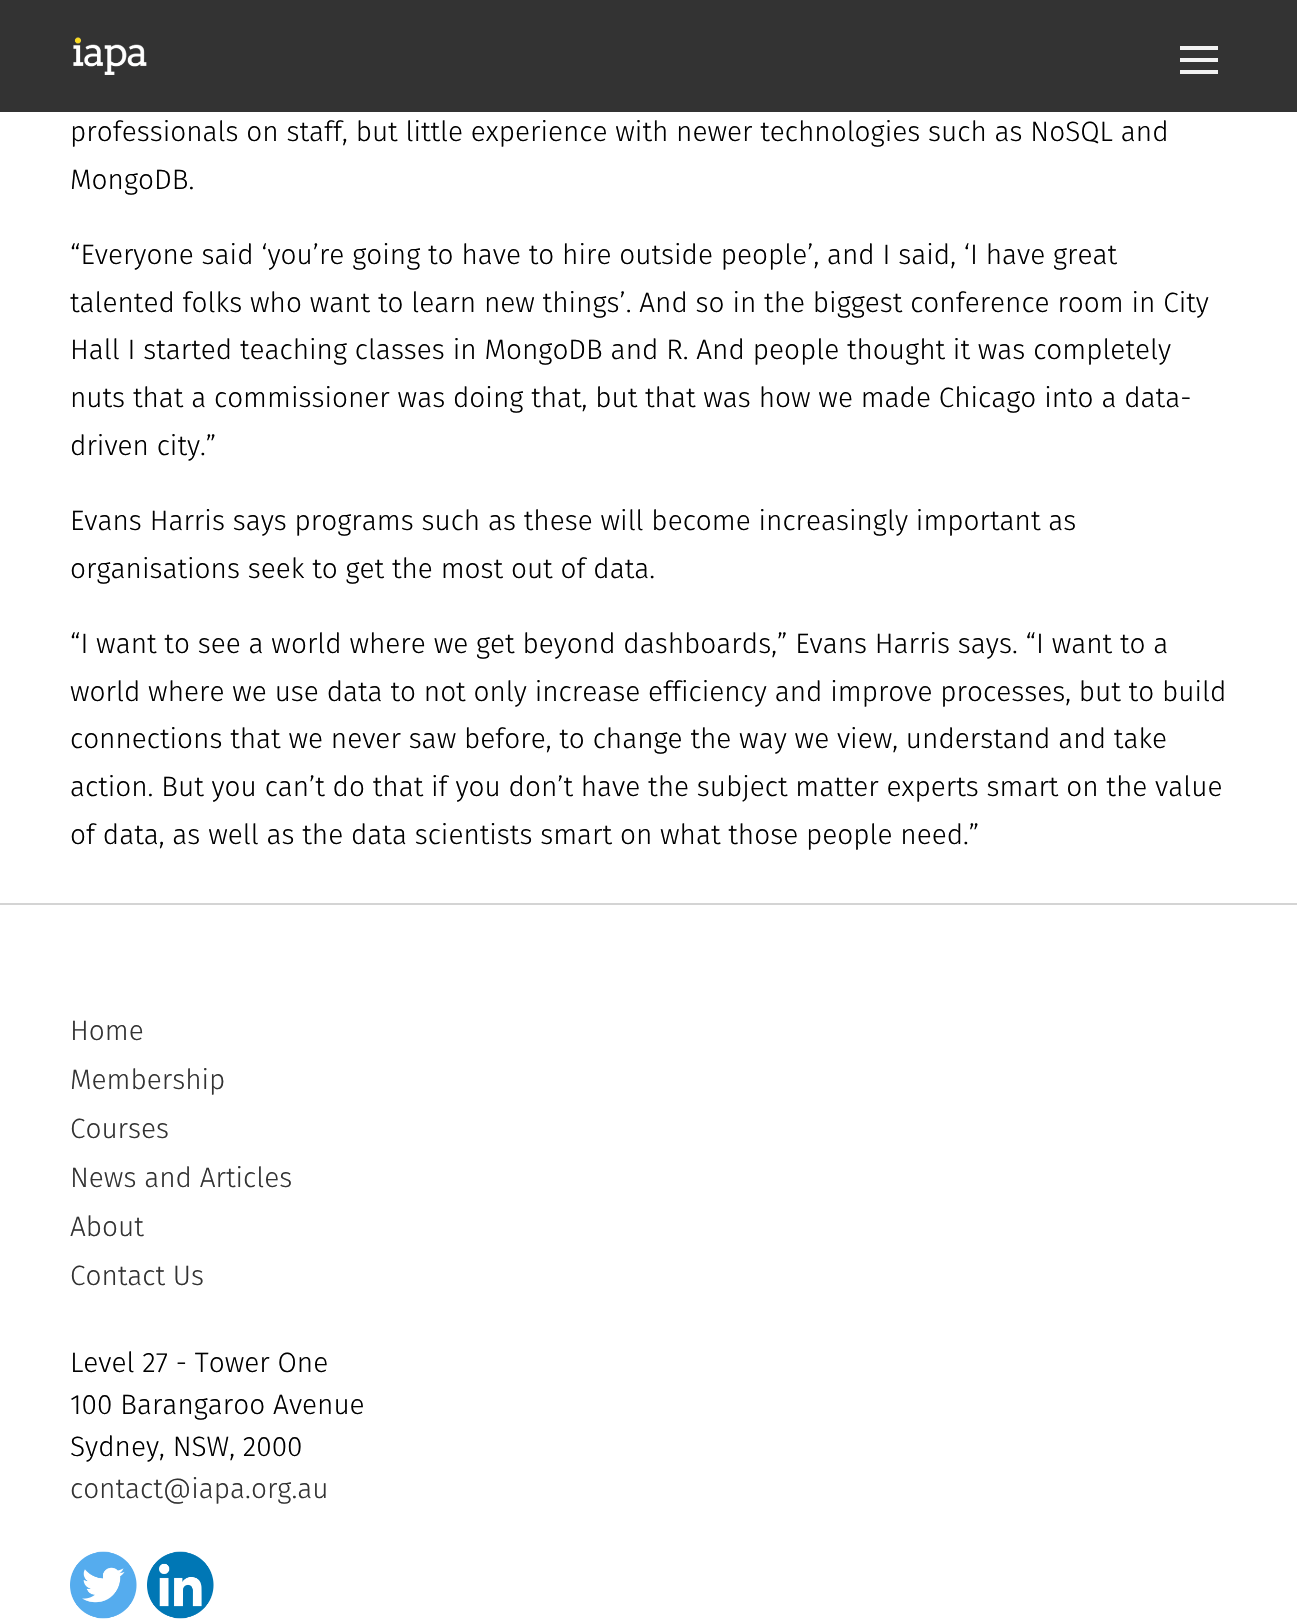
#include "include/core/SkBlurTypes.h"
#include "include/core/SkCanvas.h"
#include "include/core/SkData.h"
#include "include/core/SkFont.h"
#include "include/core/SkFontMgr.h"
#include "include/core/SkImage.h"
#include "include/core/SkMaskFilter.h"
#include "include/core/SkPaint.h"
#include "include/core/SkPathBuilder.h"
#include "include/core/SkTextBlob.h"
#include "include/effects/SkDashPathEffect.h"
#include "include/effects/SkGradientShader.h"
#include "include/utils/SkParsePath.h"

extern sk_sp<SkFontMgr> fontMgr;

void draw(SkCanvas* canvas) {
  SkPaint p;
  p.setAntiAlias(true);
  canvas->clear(SK_ColorWHITE);
  p.setColor(SkColorSetRGB(51, 51, 51));
  canvas->drawRect(SkRect::MakeLTRB(0, 0, 1297, 112), p);
  canvas->drawImageRect(SkImages::DeferredFromEncodedData(SkData::MakeFromFileName("images/1.png")), SkRect::MakeLTRB(73, 37, 147, 75), SkSamplingOptions());
  p.setColor(SkColorSetRGB(242, 242, 242));
  canvas->drawRect(SkRect::MakeLTRB(1180, 58, 1218, 62), p);
  canvas->drawRect(SkRect::MakeLTRB(1180, 46, 1218, 50), p);
  canvas->drawRect(SkRect::MakeLTRB(1180, 70, 1218, 74), p);
  p.setColor(SkColorSetRGB(212, 212, 212));
  canvas->drawRect(SkRect::MakeLTRB(0, 903, 1297, 905), p);
  canvas->drawImageRect(SkImages::DeferredFromEncodedData(SkData::MakeFromFileName("images/2.png")), SkRect::MakeLTRB(70, 1551, 137, 1619), SkSamplingOptions());
  canvas->drawImageRect(SkImages::DeferredFromEncodedData(SkData::MakeFromFileName("images/3.png")), SkRect::MakeLTRB(147, 1551, 214, 1619), SkSamplingOptions());
  SkFont font1(fontMgr->matchFamilyStyle("Fira Sans", SkFontStyle(300, SkFontStyle::kNormal_Width, SkFontStyle::kUpright_Slant)), 28);
  font1.setSubpixel(true);
  p.setColor(SK_ColorBLACK);
  canvas->drawString("professionals on staff, but little experience with newer technologies such as NoSQL and", 70, 141, font1, p);
  canvas->drawString("MongoDB.", 70, 189, font1, p);
  canvas->drawString("“Everyone said ‘you’re going to have to hire outside people’, and I said, ‘I have great", 70, 264, font1, p);
  canvas->drawString("talented folks who want to learn new things’. And so in the biggest conference room in City", 70, 312, font1, p);
  canvas->drawString("Hall I started teaching classes in MongoDB and R. And people thought it was completely", 70, 359, font1, p);
  canvas->drawString("nuts that a commissioner was doing that, but that was how we made Chicago into a data-", 70, 407, font1, p);
  canvas->drawString("driven city.”", 70, 455, font1, p);
  canvas->drawString("Evans Harris says programs such as these will become increasingly important as", 70, 530, font1, p);
  canvas->drawString("organisations seek to get the most out of data.", 70, 578, font1, p);
  canvas->drawString("“I want to see a world where we get beyond dashboards,” Evans Harris says. “I want to a", 70, 653, font1, p);
  canvas->drawString("world where we use data to not only increase efficiency and improve processes, but to build", 70, 701, font1, p);
  canvas->drawString("connections that we never saw before, to change the way we view, understand and take", 70, 748, font1, p);
  canvas->drawString("action. But you can’t do that if you don’t have the subject matter experts smart on the value", 70, 796, font1, p);
  canvas->drawString("of data, as well as the data scientists smart on what those people need.”", 70, 844, font1, p);
  p.setColor(SkColorSetRGB(51, 51, 51));
  canvas->drawString("Home", 70, 1040, font1, p);
  canvas->drawString("Membership", 70, 1089, font1, p);
  canvas->drawString("Courses", 70, 1138, font1, p);
  canvas->drawString("News and Articles", 70, 1187, font1, p);
  canvas->drawString("About", 70, 1236, font1, p);
  canvas->drawString("Contact Us", 70, 1285, font1, p);
  p.setColor(SK_ColorBLACK);
  canvas->drawString("Level 27 - Tower One", 70, 1372, font1, p);
  canvas->drawString("100 Barangaroo Avenue", 70, 1414, font1, p);
  canvas->drawString("Sydney, NSW, 2000", 70, 1456, font1, p);
  p.setColor(SkColorSetRGB(51, 51, 51));
  canvas->drawString("contact@iapa.org.au", 70, 1498, font1, p);
}
